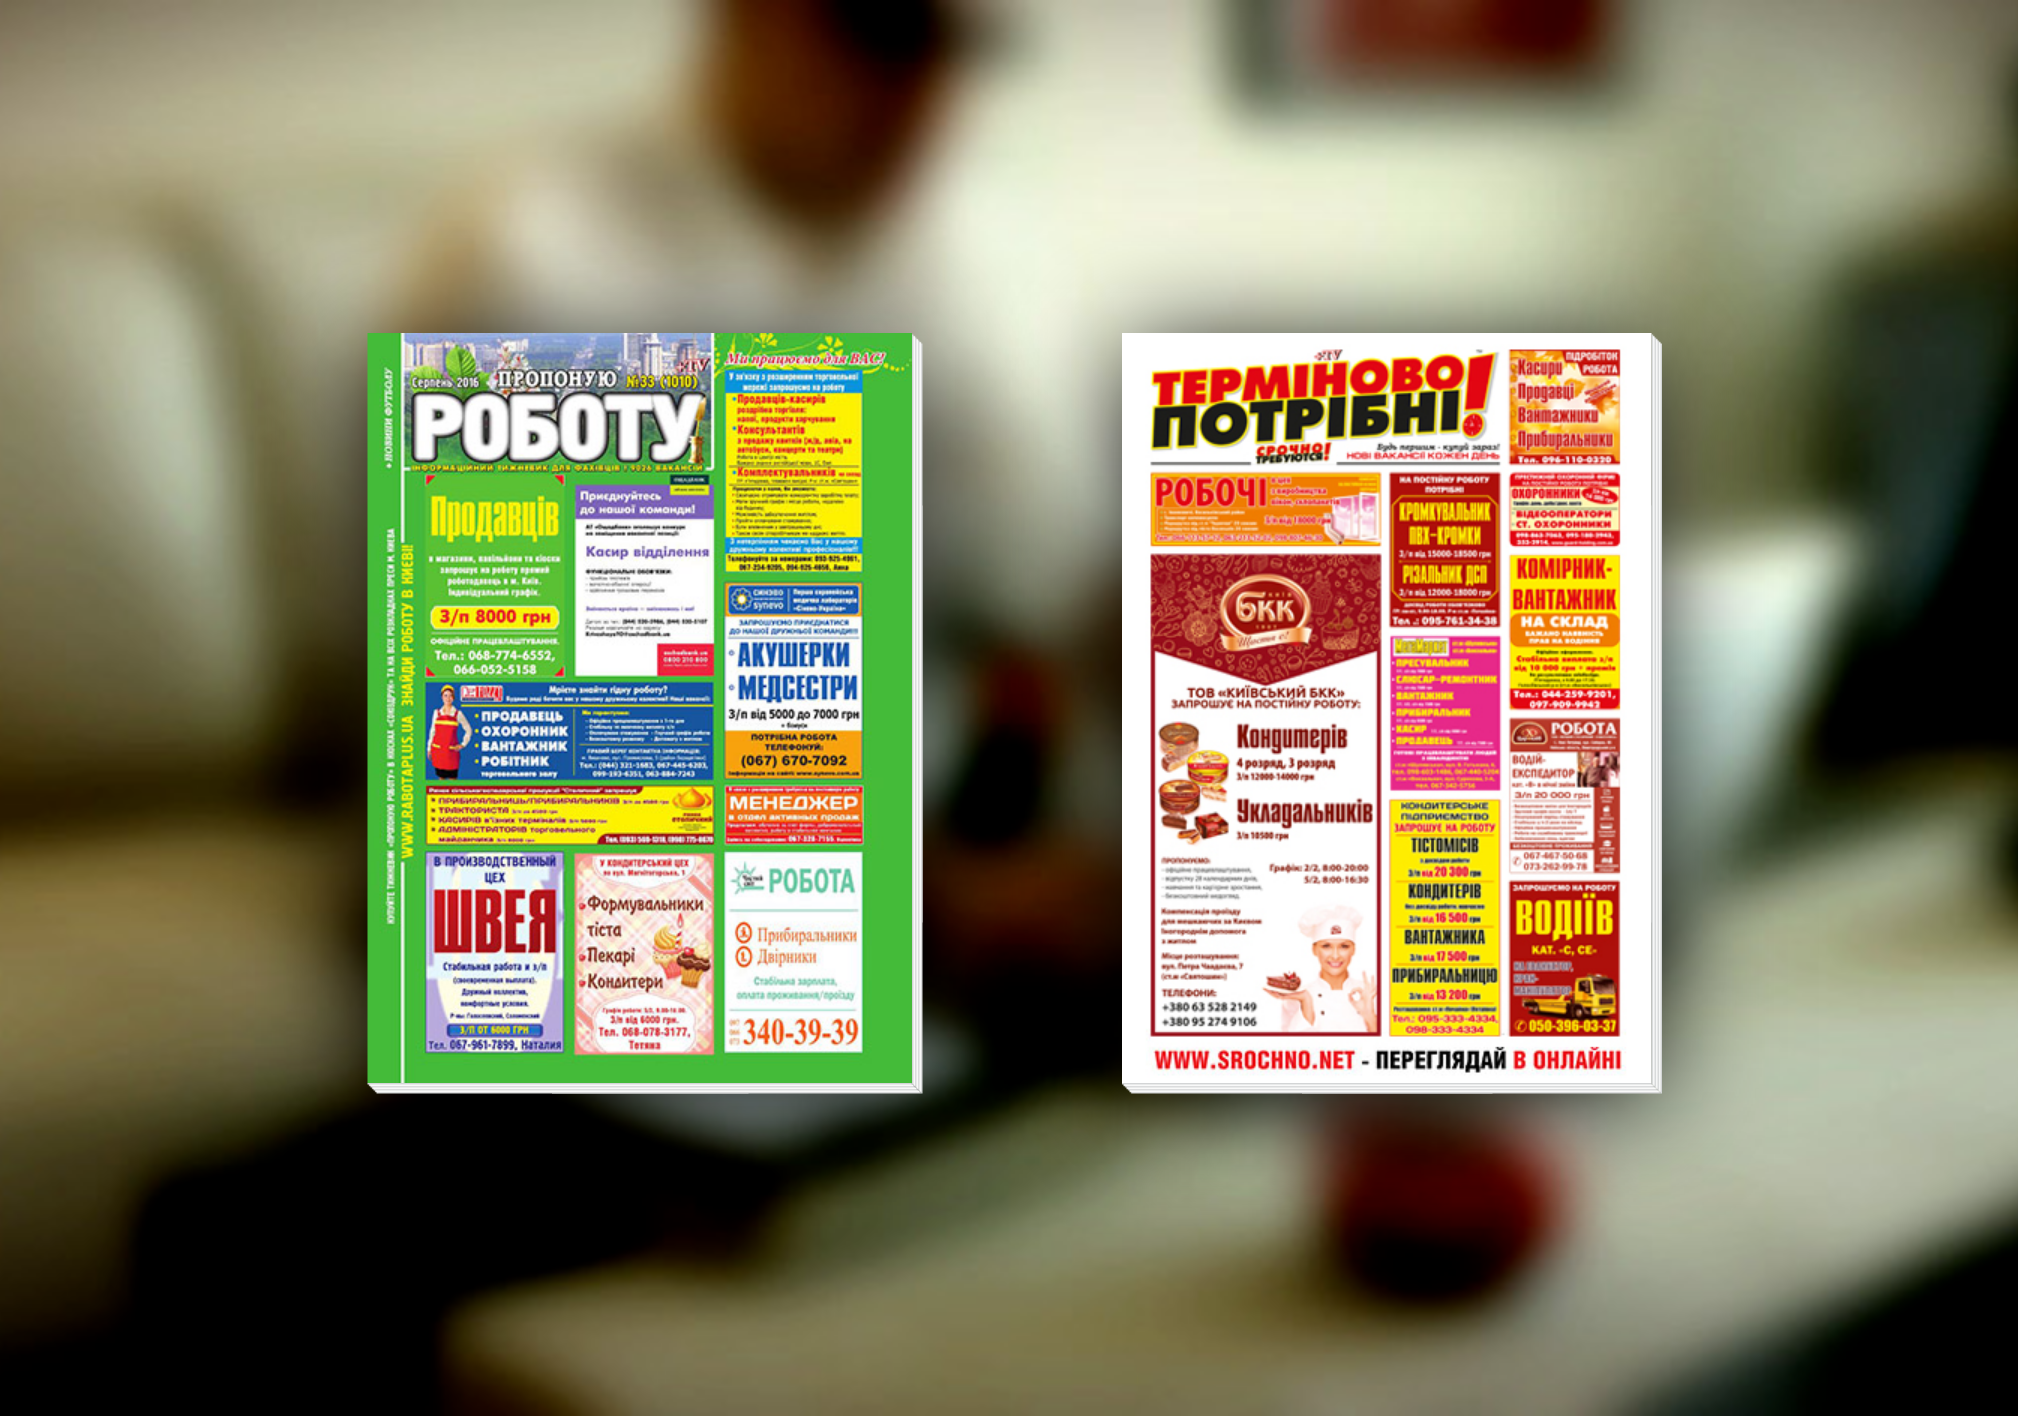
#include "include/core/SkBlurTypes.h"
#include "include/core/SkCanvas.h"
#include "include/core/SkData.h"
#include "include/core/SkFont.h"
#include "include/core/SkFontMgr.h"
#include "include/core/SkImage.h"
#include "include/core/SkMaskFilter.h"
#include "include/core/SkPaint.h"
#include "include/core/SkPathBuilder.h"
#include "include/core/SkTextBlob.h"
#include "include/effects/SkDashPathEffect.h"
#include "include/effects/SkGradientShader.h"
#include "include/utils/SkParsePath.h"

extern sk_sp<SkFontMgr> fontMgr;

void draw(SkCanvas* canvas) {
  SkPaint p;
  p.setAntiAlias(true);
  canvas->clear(SK_ColorWHITE);
  canvas->drawImageRect(SkImages::DeferredFromEncodedData(SkData::MakeFromFileName("images/1.png")), SkRect::MakeLTRB(0, 0, 2018, 1416), SkSamplingOptions());
  p.setColor(SK_ColorBLACK);
  p.setMaskFilter(SkMaskFilter::MakeBlur(kNormal_SkBlurStyle, 56));
  canvas->drawRect(SkRect::MakeLTRB(368, 348, 912, 1098), p);
  p.setMaskFilter(nullptr);
  canvas->drawImageRect(SkImages::DeferredFromEncodedData(SkData::MakeFromFileName("images/2.png")), SkRect::MakeLTRB(367, 333, 912, 1083), SkSamplingOptions());
  canvas->drawImageRect(SkImages::DeferredFromEncodedData(SkData::MakeFromFileName("images/3.png")), SkRect::MakeLTRB(912, 334, 923, 923), SkSamplingOptions());
  canvas->drawImageRect(SkImages::DeferredFromEncodedData(SkData::MakeFromFileName("images/4.png")), SkRect::MakeLTRB(912, 505, 923, 1094), SkSamplingOptions());
  canvas->drawImageRect(SkImages::DeferredFromEncodedData(SkData::MakeFromFileName("images/5.png")), SkRect::MakeLTRB(367, 1083, 749, 1094), SkSamplingOptions());
  canvas->drawImageRect(SkImages::DeferredFromEncodedData(SkData::MakeFromFileName("images/6.png")), SkRect::MakeLTRB(552, 1083, 922, 1094), SkSamplingOptions());
  p.setMaskFilter(SkMaskFilter::MakeBlur(kNormal_SkBlurStyle, 56));
  canvas->drawRect(SkRect::MakeLTRB(1122, 348, 1652, 1098), p);
  p.setMaskFilter(nullptr);
  canvas->drawImageRect(SkImages::DeferredFromEncodedData(SkData::MakeFromFileName("images/7.png")), SkRect::MakeLTRB(1122, 333, 1652, 1083), SkSamplingOptions());
  canvas->drawImageRect(SkImages::DeferredFromEncodedData(SkData::MakeFromFileName("images/8.png")), SkRect::MakeLTRB(1651, 334, 1662, 923), SkSamplingOptions());
  canvas->drawImageRect(SkImages::DeferredFromEncodedData(SkData::MakeFromFileName("images/9.png")), SkRect::MakeLTRB(1651, 505, 1662, 1094), SkSamplingOptions());
  canvas->drawImageRect(SkImages::DeferredFromEncodedData(SkData::MakeFromFileName("images/10.png")), SkRect::MakeLTRB(1122, 1083, 1493, 1094), SkSamplingOptions());
  canvas->drawImageRect(SkImages::DeferredFromEncodedData(SkData::MakeFromFileName("images/11.png")), SkRect::MakeLTRB(1302, 1083, 1661, 1094), SkSamplingOptions());
}
